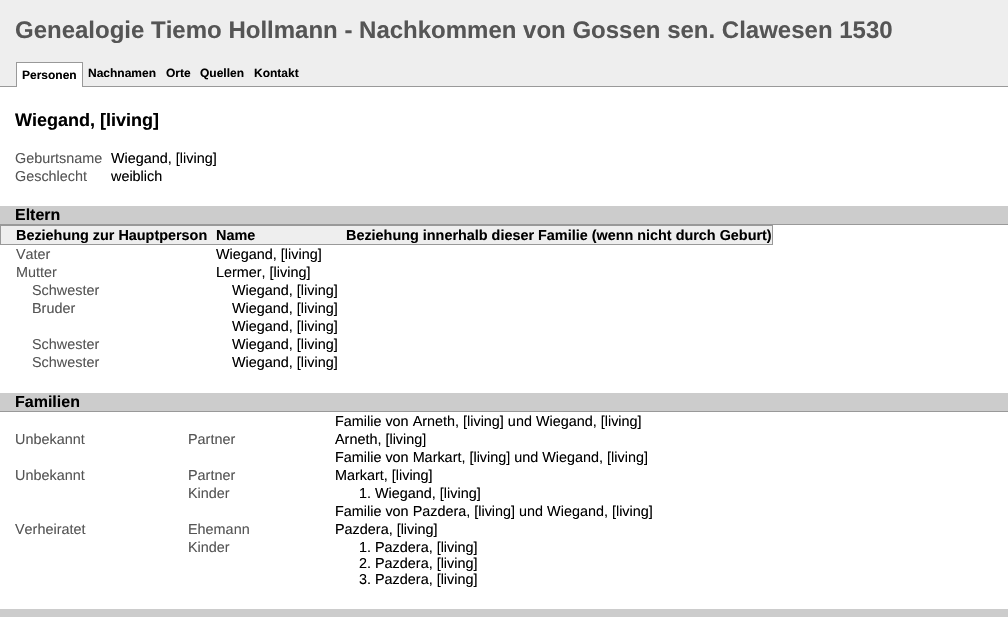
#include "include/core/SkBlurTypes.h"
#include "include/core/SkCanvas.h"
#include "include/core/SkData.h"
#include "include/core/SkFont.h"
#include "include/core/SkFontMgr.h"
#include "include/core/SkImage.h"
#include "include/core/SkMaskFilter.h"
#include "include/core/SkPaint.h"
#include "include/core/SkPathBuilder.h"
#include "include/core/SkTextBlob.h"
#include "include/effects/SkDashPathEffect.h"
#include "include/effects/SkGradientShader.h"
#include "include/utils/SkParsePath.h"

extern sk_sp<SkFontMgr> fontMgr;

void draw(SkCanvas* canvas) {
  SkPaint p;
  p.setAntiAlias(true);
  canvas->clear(SkColorSetRGB(238, 238, 238));
  p.setColor(SkColorSetRGB(153, 153, 153));
  canvas->drawRect(SkRect::MakeLTRB(0, 86, 1008, 87), p);
  p.setColor(SK_ColorWHITE);
  canvas->drawRect(SkRect::MakeLTRB(17, 63, 82, 87), p);
  p.setColor(SkColorSetRGB(153, 153, 153));
  canvas->drawRect(SkRect::MakeLTRB(16, 62, 83, 63), p);
  canvas->drawRect(SkRect::MakeLTRB(82, 62, 83, 87), p);
  canvas->drawRect(SkRect::MakeLTRB(16, 62, 17, 87), p);
  p.setColor(SK_ColorWHITE);
  canvas->drawRect(SkRect::MakeLTRB(0, 87, 1008, 609), p);
  p.setColor(SkColorSetRGB(204, 204, 204));
  canvas->drawRect(SkRect::MakeLTRB(0, 206, 1008, 224), p);
  p.setColor(SkColorSetRGB(153, 153, 153));
  canvas->drawRect(SkRect::MakeLTRB(0, 224, 1008, 225), p);
  p.setColor(SkColorSetRGB(238, 238, 238));
  canvas->drawRect(SkRect::MakeLTRB(1, 226, 772, 244), p);
  p.setColor(SkColorSetRGB(153, 153, 153));
  canvas->drawRect(SkRect::MakeLTRB(0, 225, 773, 226), p);
  canvas->drawRect(SkRect::MakeLTRB(772, 225, 773, 245), p);
  canvas->drawRect(SkRect::MakeLTRB(0, 244, 773, 245), p);
  canvas->drawRect(SkRect::MakeLTRB(0, 225, 1, 245), p);
  p.setColor(SkColorSetRGB(204, 204, 204));
  canvas->drawRect(SkRect::MakeLTRB(0, 393, 1008, 411), p);
  p.setColor(SkColorSetRGB(153, 153, 153));
  canvas->drawRect(SkRect::MakeLTRB(0, 411, 1008, 412), p);
  p.setColor(SkColorSetRGB(204, 204, 204));
  canvas->drawRect(SkRect::MakeLTRB(0, 609, 1008, 617), p);
  SkFont font1(fontMgr->matchFamilyStyle("Liberation Sans", SkFontStyle::Bold()), 24);
  font1.setSubpixel(true);
  p.setColor(SkColorSetRGB(85, 85, 85));
  canvas->drawString("Genealogie Tiemo Hollmann - Nachkommen von Gossen sen. Clawesen 1530", 15, 38, font1, p);
  SkFont font2(fontMgr->matchFamilyStyle("Liberation Sans", SkFontStyle::Bold()), 12);
  font2.setSubpixel(true);
  p.setColor(SK_ColorBLACK);
  canvas->drawString("Personen", 22, 79, font2, p);
  canvas->drawString("Nachnamen", 88, 77, font2, p);
  canvas->drawString("Orte", 166, 77, font2, p);
  canvas->drawString("Quellen", 200, 77, font2, p);
  canvas->drawString("Kontakt", 254, 77, font2, p);
  SkFont font3(fontMgr->matchFamilyStyle("Liberation Sans", SkFontStyle::Bold()), 18);
  font3.setSubpixel(true);
  canvas->drawString("Wiegand, [living]", 15, 126, font3, p);
  SkFont font4(fontMgr->matchFamilyStyle("Liberation Sans", SkFontStyle::Normal()), 14.4f);
  font4.setSubpixel(true);
  p.setColor(SkColorSetRGB(85, 85, 85));
  canvas->drawString("Geburtsname", 15, 163, font4, p);
  p.setColor(SK_ColorBLACK);
  canvas->drawString("Wiegand, [living]", 111, 163, font4, p);
  p.setColor(SkColorSetRGB(85, 85, 85));
  canvas->drawString("Geschlecht", 15, 181, font4, p);
  p.setColor(SK_ColorBLACK);
  canvas->drawString("weiblich", 111, 181, font4, p);
  SkFont font5(fontMgr->matchFamilyStyle("Liberation Sans", SkFontStyle::Bold()), 16);
  font5.setSubpixel(true);
  canvas->drawString("Eltern", 15, 220, font5, p);
  SkFont font6(fontMgr->matchFamilyStyle("Liberation Sans", SkFontStyle::Bold()), 14.4f);
  font6.setSubpixel(true);
  canvas->drawString("Beziehung zur Hauptperson", 16, 240, font6, p);
  canvas->drawString("Name", 216, 240, font6, p);
  canvas->drawString("Beziehung innerhalb dieser Familie (wenn nicht durch Geburt)", 346, 240, font6, p);
  p.setColor(SkColorSetRGB(85, 85, 85));
  canvas->drawString("Vater", 16, 259, font4, p);
  p.setColor(SK_ColorBLACK);
  canvas->drawString("Wiegand, [living]", 216, 259, font4, p);
  p.setColor(SkColorSetRGB(85, 85, 85));
  canvas->drawString("Mutter", 16, 277, font4, p);
  p.setColor(SK_ColorBLACK);
  canvas->drawString("Lermer, [living]", 216, 277, font4, p);
  p.setColor(SkColorSetRGB(85, 85, 85));
  canvas->drawString("Schwester", 32, 295, font4, p);
  p.setColor(SK_ColorBLACK);
  canvas->drawString("Wiegand, [living]", 232, 295, font4, p);
  p.setColor(SkColorSetRGB(85, 85, 85));
  canvas->drawString("Bruder", 32, 313, font4, p);
  p.setColor(SK_ColorBLACK);
  canvas->drawString("Wiegand, [living]", 232, 313, font4, p);
  canvas->drawString("Wiegand, [living]", 232, 331, font4, p);
  p.setColor(SkColorSetRGB(85, 85, 85));
  canvas->drawString("Schwester", 32, 349, font4, p);
  p.setColor(SK_ColorBLACK);
  canvas->drawString("Wiegand, [living]", 232, 349, font4, p);
  p.setColor(SkColorSetRGB(85, 85, 85));
  canvas->drawString("Schwester", 32, 367, font4, p);
  p.setColor(SK_ColorBLACK);
  canvas->drawString("Wiegand, [living]", 232, 367, font4, p);
  canvas->drawString("Familien", 15, 407, font5, p);
  canvas->drawString("Familie von Arneth, [living] und Wiegand, [living]", 335, 426, font4, p);
  p.setColor(SkColorSetRGB(85, 85, 85));
  canvas->drawString("Unbekannt", 15, 444, font4, p);
  canvas->drawString("Partner", 188, 444, font4, p);
  p.setColor(SK_ColorBLACK);
  canvas->drawString("Arneth, [living]", 335, 444, font4, p);
  canvas->drawString("Familie von Markart, [living] und Wiegand, [living]", 335, 462, font4, p);
  p.setColor(SkColorSetRGB(85, 85, 85));
  canvas->drawString("Unbekannt", 15, 480, font4, p);
  canvas->drawString("Partner", 188, 480, font4, p);
  p.setColor(SK_ColorBLACK);
  canvas->drawString("Markart, [living]", 335, 480, font4, p);
  p.setColor(SkColorSetRGB(85, 85, 85));
  canvas->drawString("Kinder", 188, 498, font4, p);
  p.setColor(SK_ColorBLACK);
  canvas->drawString("1. Wiegand, [living]", 359, 498, font4, p);
  canvas->drawString("Familie von Pazdera, [living] und Wiegand, [living]", 335, 516, font4, p);
  p.setColor(SkColorSetRGB(85, 85, 85));
  canvas->drawString("Verheiratet", 15, 534, font4, p);
  canvas->drawString("Ehemann", 188, 534, font4, p);
  p.setColor(SK_ColorBLACK);
  canvas->drawString("Pazdera, [living]", 335, 534, font4, p);
  p.setColor(SkColorSetRGB(85, 85, 85));
  canvas->drawString("Kinder", 188, 552, font4, p);
  p.setColor(SK_ColorBLACK);
  canvas->drawString("1. Pazdera, [living]", 359, 552, font4, p);
  canvas->drawString("2. Pazdera, [living]", 359, 568, font4, p);
  canvas->drawString("3. Pazdera, [living]", 359, 584, font4, p);
}
